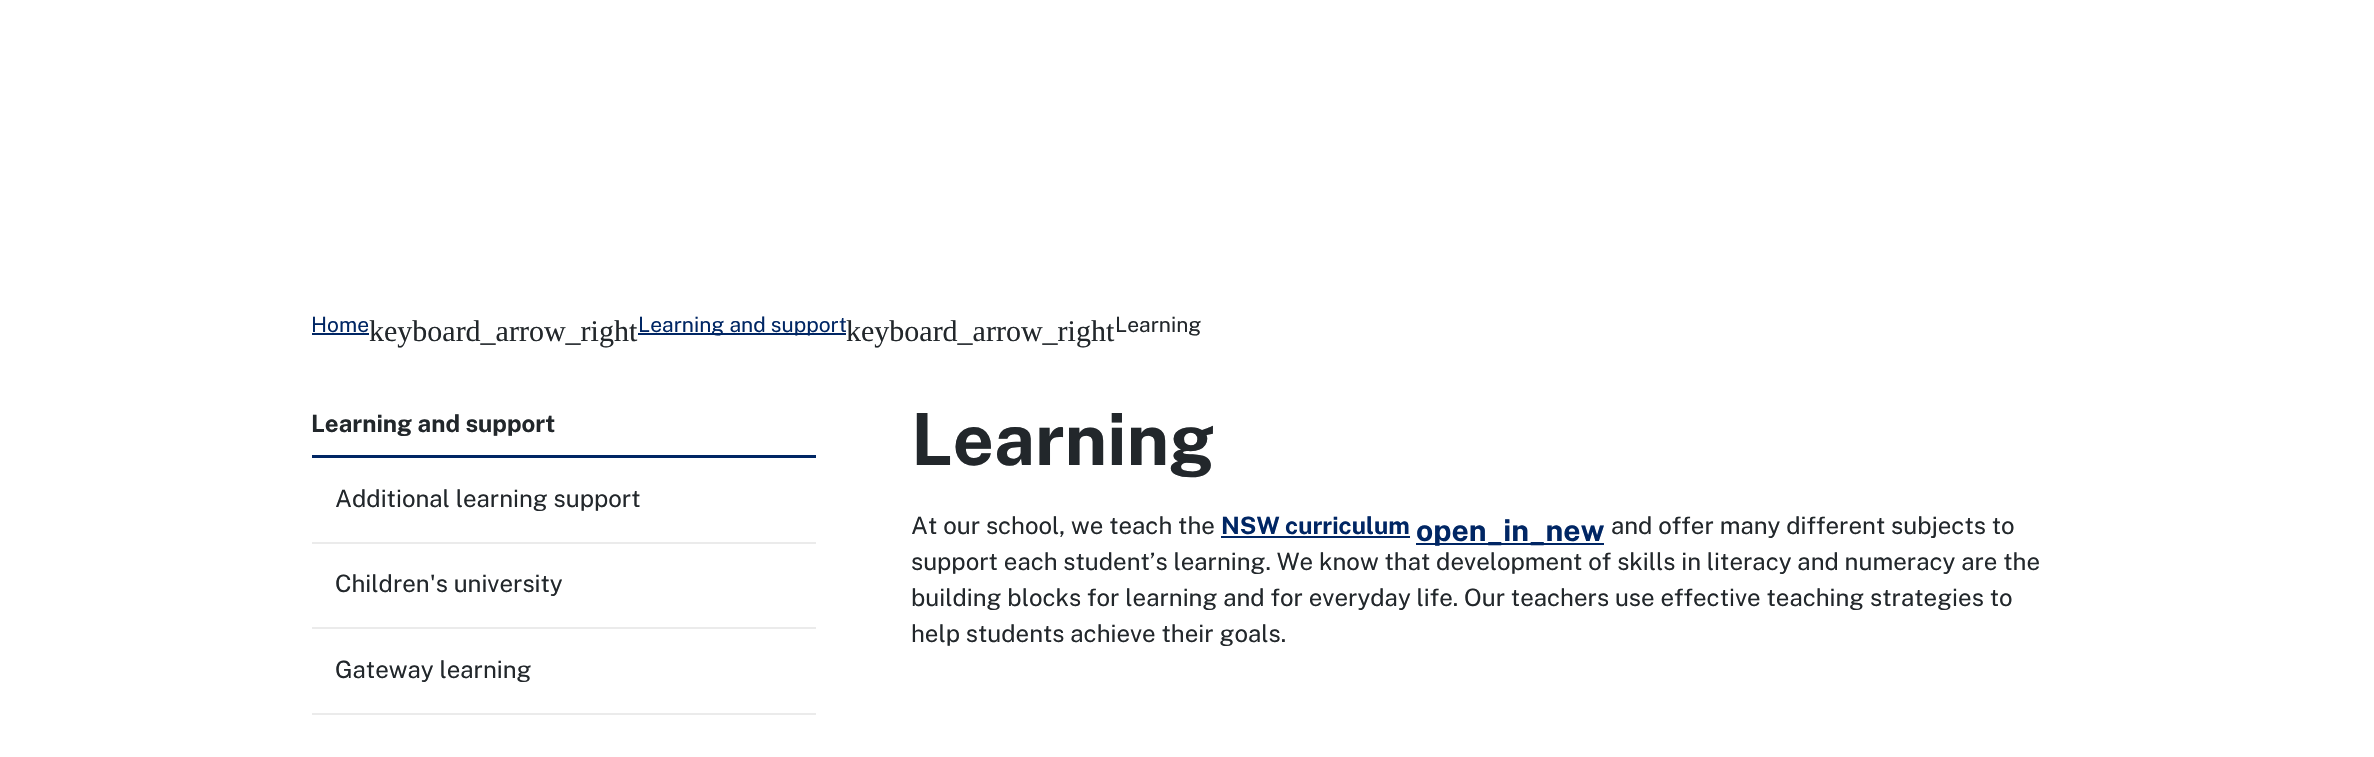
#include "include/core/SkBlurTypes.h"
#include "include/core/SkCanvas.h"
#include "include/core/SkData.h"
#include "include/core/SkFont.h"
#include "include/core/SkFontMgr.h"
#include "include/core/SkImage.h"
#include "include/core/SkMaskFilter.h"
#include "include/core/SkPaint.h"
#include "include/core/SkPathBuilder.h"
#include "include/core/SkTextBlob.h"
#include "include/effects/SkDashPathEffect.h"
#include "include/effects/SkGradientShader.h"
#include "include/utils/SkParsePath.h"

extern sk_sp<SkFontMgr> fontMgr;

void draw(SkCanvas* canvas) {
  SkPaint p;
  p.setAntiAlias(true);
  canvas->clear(SK_ColorWHITE);
  p.setColor(SkColorSetRGB(0, 38, 100));
  canvas->drawRect(SkRect::MakeLTRB(312, 333, 369, 335), p);
  canvas->drawRect(SkRect::MakeLTRB(638, 333, 846, 335), p);
  canvas->drawRect(SkRect::MakeLTRB(312, 455, 816, 458), p);
  p.setColor(SkColorSetRGB(235, 235, 235));
  canvas->drawRect(SkRect::MakeLTRB(312, 542, 816, 544), p);
  canvas->drawRect(SkRect::MakeLTRB(312, 627, 816, 629), p);
  canvas->drawRect(SkRect::MakeLTRB(312, 713, 816, 715), p);
  p.setColor(SkColorSetRGB(0, 38, 100));
  canvas->drawRect(SkRect::MakeLTRB(1221, 536, 1410, 538), p);
  canvas->drawRect(SkRect::MakeLTRB(1416, 543, 1604, 545), p);
  SkFont font1(fontMgr->matchFamilyStyle("Public Sans", SkFontStyle::Normal()), 21);
  font1.setSubpixel(true);
  canvas->drawString("Home", 311, 332, font1, p);
  SkFont font2(fontMgr->matchFamilyStyle("Liberation Serif", SkFontStyle::Normal()), 30);
  font2.setSubpixel(true);
  p.setColor(SkColorSetRGB(34, 39, 43));
  canvas->drawString("keyboard_arrow_right", 369, 341, font2, p);
  p.setColor(SkColorSetRGB(0, 38, 100));
  canvas->drawString("Learning and support", 638, 332, font1, p);
  p.setColor(SkColorSetRGB(34, 39, 43));
  canvas->drawString("keyboard_arrow_right", 846, 341, font2, p);
  canvas->drawString("Learning", 1115, 332, font1, p);
  SkFont font3(fontMgr->matchFamilyStyle("Public Sans", SkFontStyle::Bold()), 24);
  font3.setSubpixel(true);
  canvas->drawString("Learning and support", 311, 432, font3, p);
  SkFont font4(fontMgr->matchFamilyStyle("Public Sans", SkFontStyle::Normal()), 24);
  font4.setSubpixel(true);
  canvas->drawString("Additional learning support", 335, 507, font4, p);
  canvas->drawString("Children's university", 335, 592, font4, p);
  canvas->drawString("Gateway learning", 335, 678, font4, p);
  SkFont font5(fontMgr->matchFamilyStyle("Public Sans", SkFontStyle::Bold()), 72);
  font5.setSubpixel(true);
  canvas->drawString("Learning", 911, 465, font5, p);
  canvas->drawString("At our school, we teach the", 911, 534, font4, p);
  p.setColor(SkColorSetRGB(0, 38, 100));
  canvas->drawString("NSW curriculum", 1221, 534, font3, p);
  SkFont font6(fontMgr->matchFamilyStyle("Public Sans", SkFontStyle::Bold()), 30);
  font6.setSubpixel(true);
  canvas->drawString("open_in_new", 1416, 541, font6, p);
  p.setColor(SkColorSetRGB(34, 39, 43));
  canvas->drawString("and offer many different subjects to", 1611, 534, font4, p);
  canvas->drawString("support each student’s learning. We know that development of skills in literacy and numeracy are the", 911, 570, font4, p);
  canvas->drawString("building blocks for learning and for everyday life. Our teachers use effective teaching strategies to", 911, 606, font4, p);
  canvas->drawString("help students achieve their goals.", 911, 642, font4, p);
}
